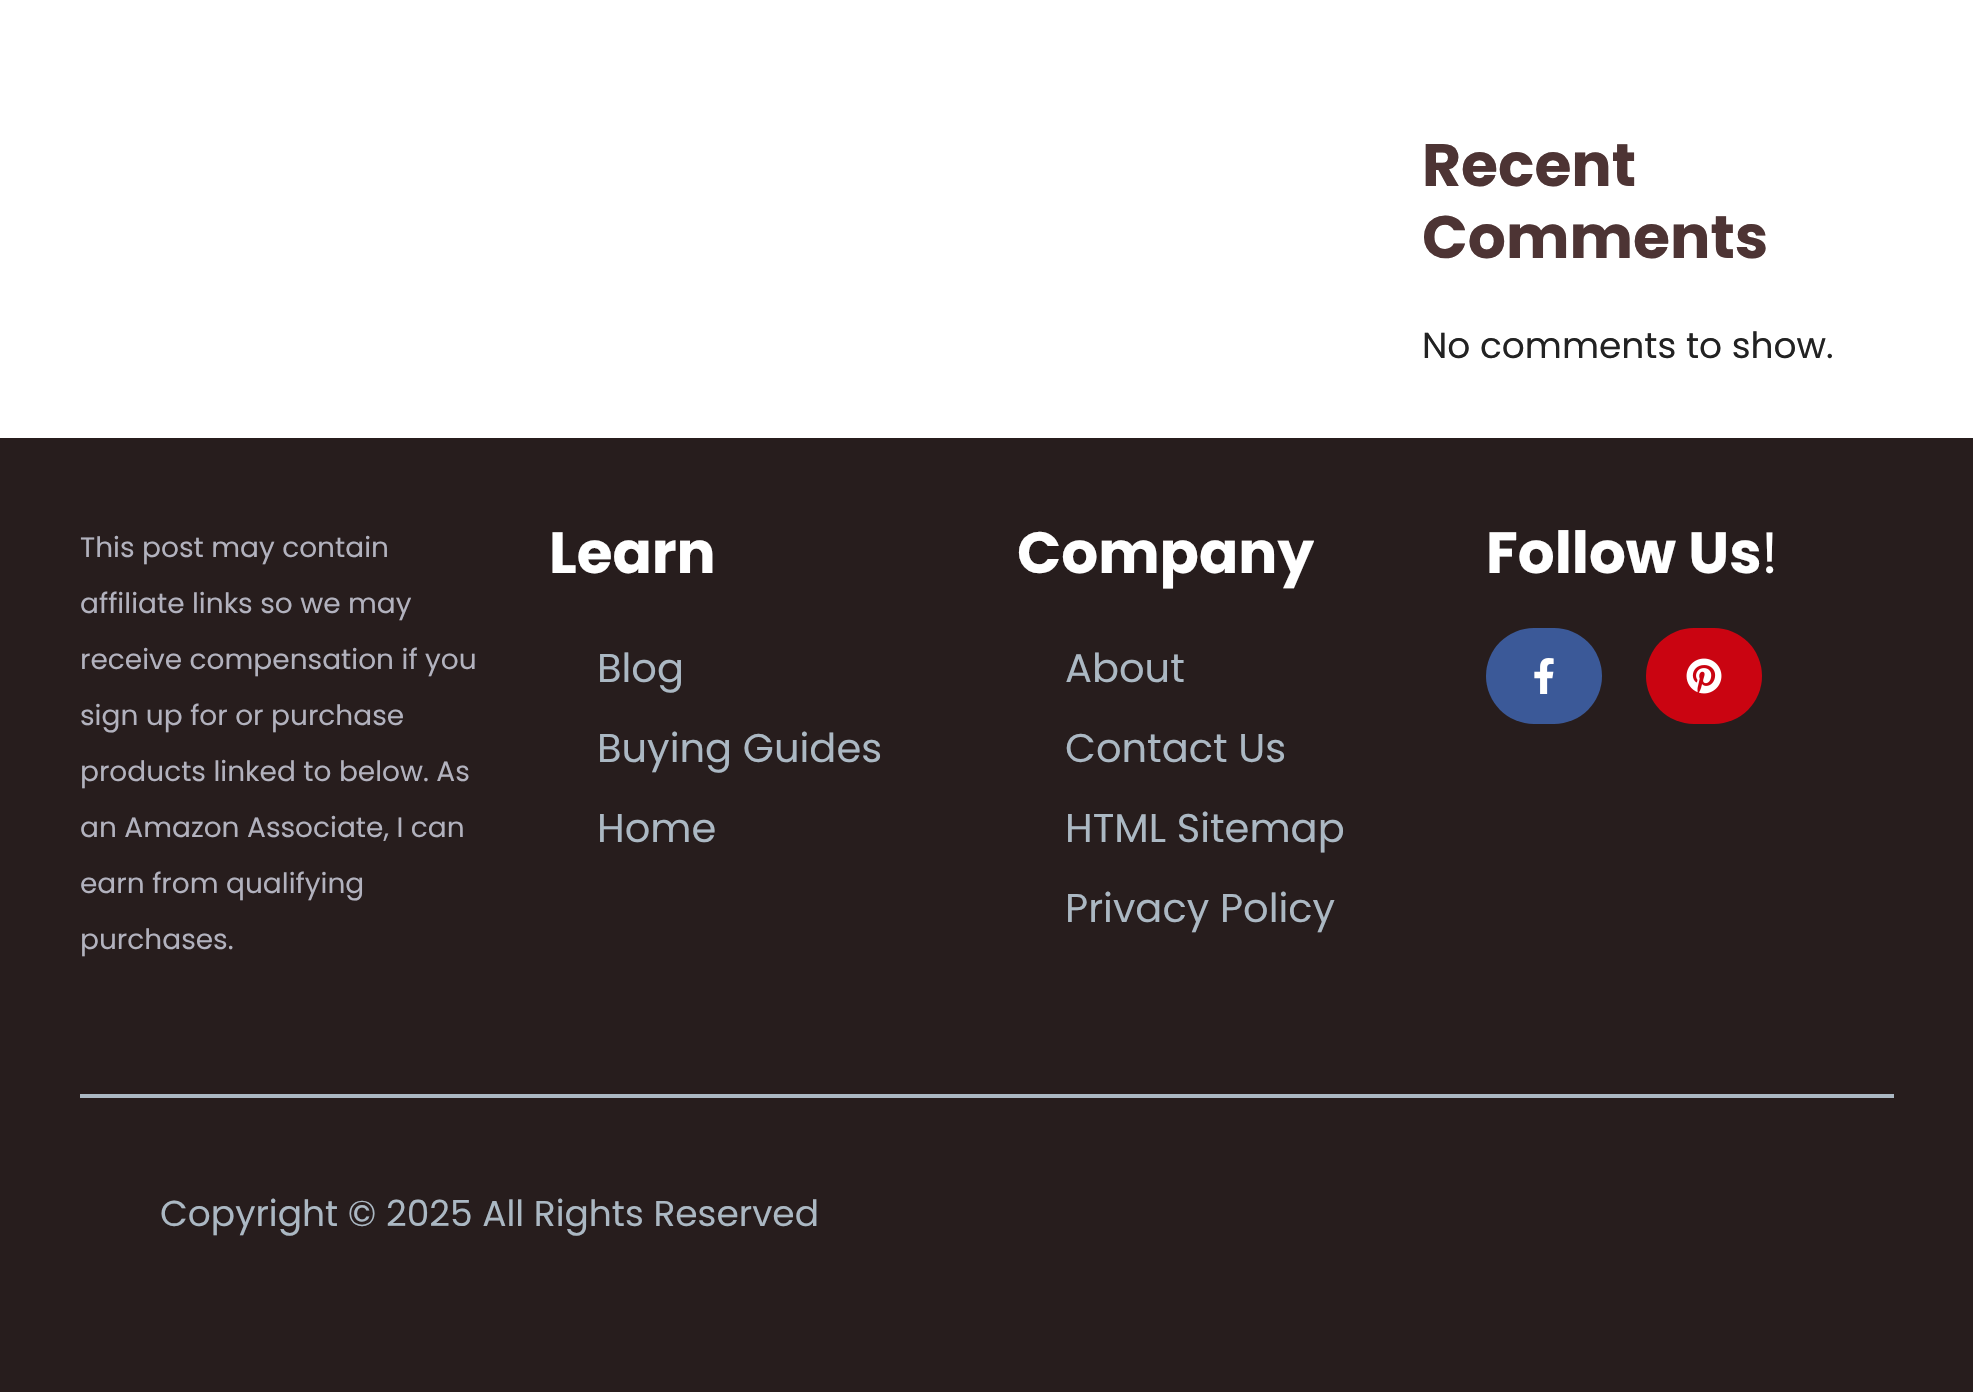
#include "include/core/SkBlurTypes.h"
#include "include/core/SkCanvas.h"
#include "include/core/SkData.h"
#include "include/core/SkFont.h"
#include "include/core/SkFontMgr.h"
#include "include/core/SkImage.h"
#include "include/core/SkMaskFilter.h"
#include "include/core/SkPaint.h"
#include "include/core/SkPathBuilder.h"
#include "include/core/SkTextBlob.h"
#include "include/effects/SkDashPathEffect.h"
#include "include/effects/SkGradientShader.h"
#include "include/utils/SkParsePath.h"

extern sk_sp<SkFontMgr> fontMgr;

void draw(SkCanvas* canvas) {
  SkPaint p;
  p.setAntiAlias(true);
  canvas->clear(SK_ColorWHITE);
  p.setColor(SkColorSetRGB(39, 29, 29));
  canvas->drawRect(SkRect::MakeLTRB(0, 438, 1973, 1392), p);
  p.setColor(SkColorSetRGB(59, 89, 152));
  canvas->drawRoundRect(SkRect::MakeLTRB(1486, 628, 1602, 724), 48, 48, p);
  canvas->drawImageRect(SkImages::DeferredFromEncodedData(SkData::MakeFromFileName("images/1.png")), SkRect::MakeLTRB(1534, 658, 1554, 694), SkSamplingOptions());
  p.setColor(SkColorSetRGB(202, 4, 17));
  canvas->drawRoundRect(SkRect::MakeLTRB(1646, 628, 1762, 724), 48, 48, p);
  canvas->drawImageRect(SkImages::DeferredFromEncodedData(SkData::MakeFromFileName("images/2.png")), SkRect::MakeLTRB(1686, 658, 1722, 694), SkSamplingOptions());
  p.setColor(SkColorSetRGB(171, 184, 195));
  canvas->drawRect(SkRect::MakeLTRB(80, 1094, 1894, 1098), p);
  SkFont font1(fontMgr->matchFamilyStyle("Poppins", SkFontStyle::Bold()), 60);
  font1.setSubpixel(true);
  p.setColor(SkColorSetRGB(77, 52, 52));
  canvas->drawString("Recent", 1422, 186, font1, p);
  canvas->drawString("Comments", 1422, 258, font1, p);
  SkFont font2(fontMgr->matchFamilyStyle("Poppins", SkFontStyle::Normal()), 36);
  font2.setSubpixel(true);
  p.setColor(SkColorSetRGB(34, 34, 34));
  canvas->drawString("No comments to show.", 1422, 358, font2, p);
  SkFont font3(fontMgr->matchFamilyStyle("Poppins", SkFontStyle::Normal()), 28);
  font3.setSubpixel(true);
  p.setColor(SkColorSetRGB(178, 178, 190));
  canvas->drawString("This post may contain", 80, 557, font3, p);
  canvas->drawString("affiliate links so we may", 80, 613, font3, p);
  canvas->drawString("receive compensation if you", 80, 669, font3, p);
  canvas->drawString("sign up for or purchase", 80, 725, font3, p);
  canvas->drawString("products linked to below. As", 80, 781, font3, p);
  canvas->drawString("an Amazon Associate, I can", 80, 837, font3, p);
  canvas->drawString("earn from qualifying", 80, 893, font3, p);
  canvas->drawString("purchases.", 80, 949, font3, p);
  SkFont font4(fontMgr->matchFamilyStyle("Poppins", SkFontStyle::Bold()), 58);
  font4.setSubpixel(true);
  p.setColor(SK_ColorWHITE);
  canvas->drawString("Learn", 549, 573, font4, p);
  SkFont font5(fontMgr->matchFamilyStyle("Poppins", SkFontStyle::Normal()), 40);
  font5.setSubpixel(true);
  p.setColor(SkColorSetRGB(171, 184, 195));
  canvas->drawString("Blog", 597, 682, font5, p);
  canvas->drawString("Buying Guides", 597, 762, font5, p);
  canvas->drawString("Home", 597, 842, font5, p);
  p.setColor(SK_ColorWHITE);
  canvas->drawString("Company", 1017, 573, font4, p);
  p.setColor(SkColorSetRGB(171, 184, 195));
  canvas->drawString("About", 1065, 682, font5, p);
  canvas->drawString("Contact Us", 1065, 762, font5, p);
  canvas->drawString("HTML Sitemap", 1065, 842, font5, p);
  canvas->drawString("Privacy Policy", 1065, 922, font5, p);
  p.setColor(SK_ColorWHITE);
  canvas->drawString("Follow Us", 1486, 573, font4, p);
  SkFont font6(fontMgr->matchFamilyStyle("Poppins", SkFontStyle::Normal()), 58);
  font6.setSubpixel(true);
  canvas->drawString("!", 1761, 573, font6, p);
  p.setColor(SkColorSetRGB(171, 184, 195));
  canvas->drawString("Copyright © 2025 All Rights Reserved", 160, 1226, font2, p);
}
